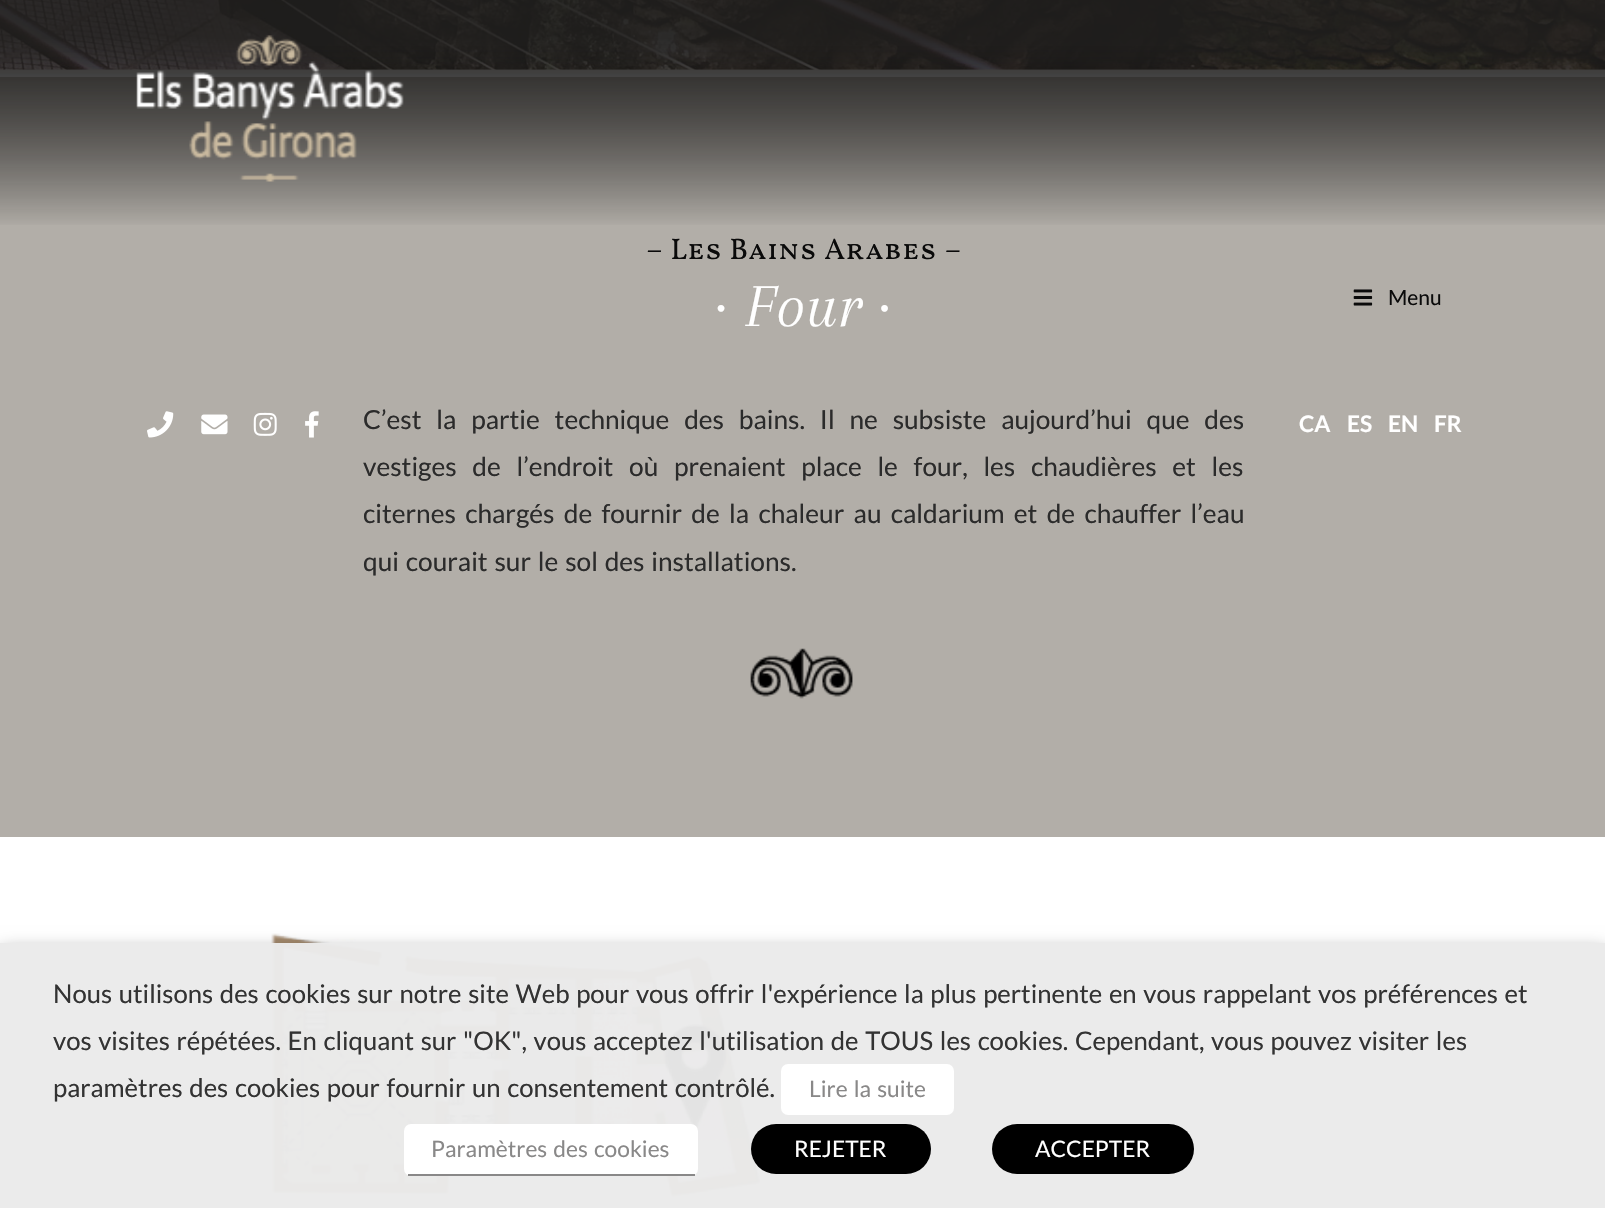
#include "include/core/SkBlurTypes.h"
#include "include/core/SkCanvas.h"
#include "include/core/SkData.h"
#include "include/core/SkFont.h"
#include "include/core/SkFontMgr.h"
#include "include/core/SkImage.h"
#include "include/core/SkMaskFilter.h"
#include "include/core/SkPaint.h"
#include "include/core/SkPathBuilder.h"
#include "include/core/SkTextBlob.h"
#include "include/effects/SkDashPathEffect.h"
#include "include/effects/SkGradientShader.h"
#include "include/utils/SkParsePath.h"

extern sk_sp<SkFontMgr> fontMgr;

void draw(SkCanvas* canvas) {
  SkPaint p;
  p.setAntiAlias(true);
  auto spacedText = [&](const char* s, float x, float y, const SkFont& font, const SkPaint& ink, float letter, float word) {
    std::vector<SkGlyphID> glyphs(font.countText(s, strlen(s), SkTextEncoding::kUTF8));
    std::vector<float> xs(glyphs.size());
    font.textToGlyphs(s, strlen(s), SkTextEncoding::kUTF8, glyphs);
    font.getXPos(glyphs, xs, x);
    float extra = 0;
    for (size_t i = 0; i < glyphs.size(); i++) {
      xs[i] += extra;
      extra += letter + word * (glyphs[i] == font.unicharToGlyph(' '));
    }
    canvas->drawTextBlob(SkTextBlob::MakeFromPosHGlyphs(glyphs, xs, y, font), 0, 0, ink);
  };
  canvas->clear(SK_ColorWHITE);
  canvas->drawImageRect(SkImages::DeferredFromEncodedData(SkData::MakeFromFileName("images/1.png")), SkRect::MakeLTRB(0, 0, 1605, 70), SkSamplingOptions());
  p.setColor(SkColorSetRGB(178, 174, 168));
  canvas->drawRect(SkRect::MakeLTRB(0, 77, 1605, 837), p);
  canvas->drawImageRect(SkImages::DeferredFromEncodedData(SkData::MakeFromFileName("images/2.png")), SkRect::MakeLTRB(750, 648, 853, 699), SkSamplingOptions());
  canvas->drawImageRect(SkImages::DeferredFromEncodedData(SkData::MakeFromFileName("images/3.png")), SkRect::MakeLTRB(271, 933, 762, 1197), SkSamplingOptions());
  canvas->drawImageRect(SkImages::DeferredFromEncodedData(SkData::MakeFromFileName("images/4.png")), SkRect::MakeLTRB(0, 0, 1605, 225), SkSamplingOptions());
  canvas->drawImageRect(SkImages::DeferredFromEncodedData(SkData::MakeFromFileName("images/5.png")), SkRect::MakeLTRB(136, 35, 404, 182), SkSamplingOptions());
  canvas->drawImageRect(SkImages::DeferredFromEncodedData(SkData::MakeFromFileName("images/6.png")), SkRect::MakeLTRB(1353, 289, 1373, 306), SkSamplingOptions());
  canvas->drawImageRect(SkImages::DeferredFromEncodedData(SkData::MakeFromFileName("images/7.png")), SkRect::MakeLTRB(147, 411, 174, 438), SkSamplingOptions());
  canvas->drawImageRect(SkImages::DeferredFromEncodedData(SkData::MakeFromFileName("images/8.png")), SkRect::MakeLTRB(201, 414, 228, 435), SkSamplingOptions());
  canvas->drawImageRect(SkImages::DeferredFromEncodedData(SkData::MakeFromFileName("images/9.png")), SkRect::MakeLTRB(253, 412, 277, 436), SkSamplingOptions());
  canvas->drawImageRect(SkImages::DeferredFromEncodedData(SkData::MakeFromFileName("images/10.png")), SkRect::MakeLTRB(305, 411, 319, 438), SkSamplingOptions());
  canvas->save();
  canvas->clipPath(SkPathBuilder(SkPathFillType::kEvenOdd).moveTo(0, 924).lineTo(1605, 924).lineTo(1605, 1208).lineTo(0, 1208).close().moveTo(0, 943).lineTo(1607, 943).lineTo(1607, 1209).lineTo(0, 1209).close().detach(), true);
  p.setColor(SkColorSetARGB(128, 0, 0, 0));
  p.setMaskFilter(SkMaskFilter::MakeBlur(kNormal_SkBlurStyle, 9));
  canvas->drawRect(SkRect::MakeLTRB(0, 952, 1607, 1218), p);
  p.setMaskFilter(nullptr);
  canvas->restore();
  p.setColor(SkColorSetARGB(247, 234, 234, 234));
  canvas->drawRect(SkRect::MakeLTRB(0, 943, 1605, 1208), p);
  p.setColor(SK_ColorWHITE);
  canvas->drawRoundRect(SkRect::MakeLTRB(781, 1064, 954, 1115), 7, 7, p);
  canvas->drawRoundRect(SkRect::MakeLTRB(404, 1124, 698, 1176), 7, 7, p);
  p.setColor(SkColorSetRGB(137, 136, 136));
  canvas->drawRect(SkRect::MakeLTRB(408, 1174, 695, 1176), p);
  p.setColor(SK_ColorBLACK);
  canvas->drawRoundRect(SkRect::MakeLTRB(751, 1124, 931, 1174), 25, 25, p);
  canvas->drawRoundRect(SkRect::MakeLTRB(992, 1124, 1194, 1174), 25, 25, p);
  SkFont font1(fontMgr->matchFamilyStyle("Vollkorn SC", SkFontStyle::Normal()), 29.75f);
  font1.setSubpixel(true);
  p.setColor(SkColorSetRGB(10, 10, 10));
  spacedText("– Les Bains Arabes –", 646, 259, font1, p, 0, 1.75f);
  SkFont font2(fontMgr->matchFamilyStyle("Arapey", SkFontStyle::Italic()), 63);
  font2.setSubpixel(true);
  p.setColor(SK_ColorWHITE);
  spacedText("· Four ·", 715, 326, font2, p, 0, 1.75f);
  SkFont font3(fontMgr->matchFamilyStyle("Lato", SkFontStyle::Normal()), 26.25f);
  font3.setSubpixel(true);
  p.setColor(SkColorSetRGB(43, 43, 43));
  spacedText("C’est la partie technique des bains. Il ne subsiste aujourd’hui que des", 363, 429, font3, p, 0, 9.75f);
  spacedText("vestiges de l’endroit où prenaient place le four, les chaudières et les", 363, 476, font3, p, 0, 10.6f);
  spacedText("citernes chargés de fournir de la chaleur au caldarium et de chauffer l’eau", 363, 523, font3, p, 0, 4.25f);
  spacedText("qui courait sur le sol des installations.", 363, 571, font3, p, 0, 1.75f);
  SkFont font4(fontMgr->matchFamilyStyle("Lato", SkFontStyle::Normal()), 21);
  font4.setSubpixel(true);
  p.setColor(SkColorSetRGB(10, 10, 10));
  canvas->drawString("Menu", 1388, 305, font4, p);
  SkFont font5(fontMgr->matchFamilyStyle("Lato", SkFontStyle::Bold()), 22.75f);
  font5.setSubpixel(true);
  p.setColor(SK_ColorWHITE);
  canvas->drawString("CA", 1299, 432, font5, p);
  canvas->drawString("ES", 1347, 432, font5, p);
  canvas->drawString("EN", 1388, 432, font5, p);
  canvas->drawString("FR", 1434, 432, font5, p);
  SkFont font6(fontMgr->matchFamilyStyle("Lato", SkFontStyle::Normal()), 25.67f);
  font6.setSubpixel(true);
  p.setColor(SkColorSetRGB(51, 51, 51));
  spacedText("Nous utilisons des cookies sur notre site Web pour vous offrir l'expérience la plus pertinente en vous rappelant vos préférences et", 53, 1003, font6, p, 0, 1.7f);
  spacedText("vos visites répétées. En cliquant sur \"OK\", vous acceptez l'utilisation de TOUS les cookies. Cependant, vous pouvez visiter les", 53, 1050, font6, p, 0, 1.7f);
  spacedText("paramètres des cookies pour fournir un consentement contrôlé.", 53, 1097, font6, p, 0, 1.75f);
  SkFont font7(fontMgr->matchFamilyStyle("Lato", SkFontStyle::Normal()), 22.75f);
  font7.setSubpixel(true);
  p.setColor(SkColorSetRGB(137, 136, 136));
  spacedText("Lire la suite", 809, 1097, font7, p, 0, 1.75f);
  spacedText("Paramètres des cookies", 431, 1157, font7, p, 0, 1.75f);
  p.setColor(SK_ColorWHITE);
  canvas->drawString("REJETER", 794, 1157, font7, p);
  canvas->drawString("ACCEPTER", 1035, 1157, font7, p);
}
